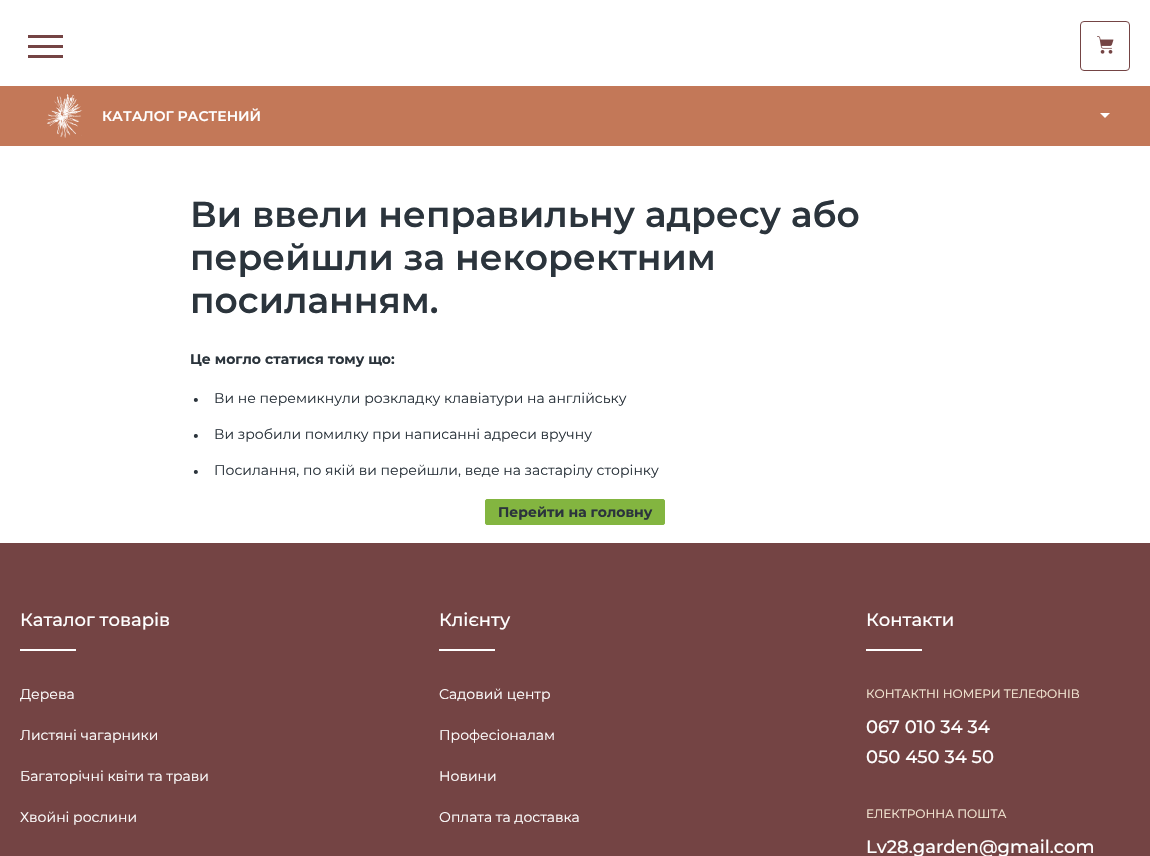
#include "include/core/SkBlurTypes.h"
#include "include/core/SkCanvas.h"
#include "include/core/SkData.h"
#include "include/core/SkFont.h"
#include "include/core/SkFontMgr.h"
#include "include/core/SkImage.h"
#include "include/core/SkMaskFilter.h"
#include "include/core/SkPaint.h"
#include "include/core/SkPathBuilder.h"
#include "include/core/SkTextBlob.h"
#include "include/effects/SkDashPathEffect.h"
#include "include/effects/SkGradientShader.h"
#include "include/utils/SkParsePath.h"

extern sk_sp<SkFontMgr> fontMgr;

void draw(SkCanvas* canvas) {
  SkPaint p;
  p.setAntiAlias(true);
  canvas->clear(SK_ColorWHITE);
  p.setColor(SkColorSetRGB(116, 68, 68));
  canvas->drawRect(SkRect::MakeLTRB(28, 45, 63, 48), p);
  canvas->drawRect(SkRect::MakeLTRB(28, 35, 63, 38), p);
  canvas->drawRect(SkRect::MakeLTRB(28, 55, 63, 58), p);
  p.setStyle(SkPaint::kStroke_Style);
  p.setStrokeWidth(1);
  canvas->drawRoundRect(SkRect::MakeLTRB(1080.5f, 21.5f, 1129.5f, 70.5f), 3.5f, 3.5f, p);
  canvas->drawImageRect(SkImages::DeferredFromEncodedData(SkData::MakeFromFileName("images/1.png")), SkRect::MakeLTRB(1097, 36, 1114, 54), SkSamplingOptions());
  p.setStyle(SkPaint::kFill_Style);
  p.setColor(SkColorSetRGB(195, 120, 88));
  canvas->drawRect(SkRect::MakeLTRB(0, 86, 1150, 146), p);
  canvas->drawImageRect(SkImages::DeferredFromEncodedData(SkData::MakeFromFileName("images/2.png")), SkRect::MakeLTRB(46, 94, 83, 138), SkSamplingOptions());
  p.setColor(SK_ColorWHITE);
  canvas->drawPath(SkPathBuilder().moveTo(1100, 113).lineTo(1105, 118).lineTo(1110, 113).close().detach(), p);
  p.setColor(SkColorSetRGB(131, 181, 64));
  canvas->drawRoundRect(SkRect::MakeLTRB(485.5f, 499.5f, 664.5f, 524.5f), 1.5f, 1.5f, p);
  p.setStyle(SkPaint::kStroke_Style);
  canvas->drawRoundRect(SkRect::MakeLTRB(485.5f, 499.5f, 664.5f, 524.5f), 1.5f, 1.5f, p);
  p.setStyle(SkPaint::kFill_Style);
  p.setColor(SkColorSetRGB(116, 68, 68));
  canvas->drawRect(SkRect::MakeLTRB(0, 543, 1150, 856), p);
  p.setColor(SK_ColorWHITE);
  canvas->drawRect(SkRect::MakeLTRB(20, 649, 76, 651), p);
  canvas->drawRect(SkRect::MakeLTRB(439, 649, 495, 651), p);
  canvas->drawRect(SkRect::MakeLTRB(866, 649, 922, 651), p);
  SkFont font1(fontMgr->matchFamilyStyle("Montserrat", SkFontStyle(600, SkFontStyle::kNormal_Width, SkFontStyle::kUpright_Slant)), 14);
  font1.setSubpixel(true);
  canvas->drawString("КАТАЛОГ РАСТЕНИЙ", 102, 121, font1, p);
  SkFont font2(fontMgr->matchFamilyStyle("Montserrat", SkFontStyle(600, SkFontStyle::kNormal_Width, SkFontStyle::kUpright_Slant)), 36);
  font2.setSubpixel(true);
  p.setColor(SkColorSetRGB(43, 52, 60));
  canvas->drawString("Ви ввели неправильну адресу або", 190, 227, font2, p);
  canvas->drawString("перейшли за некоректним", 190, 270, font2, p);
  canvas->drawString("посиланням.", 190, 313, font2, p);
  SkFont font3(fontMgr->matchFamilyStyle("Montserrat", SkFontStyle::Bold()), 14);
  font3.setSubpixel(true);
  canvas->drawString("Це могло статися тому що:", 190, 364, font3, p);
  SkFont font4(fontMgr->matchFamilyStyle("Montserrat", SkFontStyle::Normal()), 26);
  font4.setSubpixel(true);
  canvas->drawString("•", 192, 407, font4, p);
  SkFont font5(fontMgr->matchFamilyStyle("Montserrat", SkFontStyle::Normal()), 14);
  font5.setSubpixel(true);
  canvas->drawString("Ви не перемикнули розкладку клавіатури на англійську", 214, 403, font5, p);
  canvas->drawString("•", 192, 443, font4, p);
  canvas->drawString("Ви зробили помилку при написанні адреси вручну", 214, 439, font5, p);
  canvas->drawString("•", 192, 479, font4, p);
  canvas->drawString("Посилання, по якій ви перейшли, веде на застарілу сторінку", 214, 475, font5, p);
  canvas->drawString("Перейти на головну", 498, 517, font3, p);
  SkFont font6(fontMgr->matchFamilyStyle("Montserrat", SkFontStyle(500, SkFontStyle::kNormal_Width, SkFontStyle::kUpright_Slant)), 18);
  font6.setSubpixel(true);
  p.setColor(SK_ColorWHITE);
  canvas->drawString("Каталог товарів", 20, 626, font6, p);
  canvas->drawString("Дерева", 20, 699, font5, p);
  canvas->drawString("Листяні чагарники", 20, 740, font5, p);
  canvas->drawString("Багаторічні квіти та трави", 20, 781, font5, p);
  canvas->drawString("Хвойні рослини", 20, 822, font5, p);
  canvas->drawString("Клієнту", 439, 626, font6, p);
  canvas->drawString("Садовий центр", 439, 699, font5, p);
  canvas->drawString("Професіоналам", 439, 740, font5, p);
  canvas->drawString("Новини", 439, 781, font5, p);
  canvas->drawString("Оплата та доставка", 439, 822, font5, p);
  canvas->drawString("Контакти", 866, 626, font6, p);
  SkFont font7(fontMgr->matchFamilyStyle("Montserrat", SkFontStyle::Normal()), 12);
  font7.setSubpixel(true);
  p.setColor(SkColorSetRGB(248, 237, 216));
  canvas->drawString("КОНТАКТНІ НОМЕРИ ТЕЛЕФОНІВ", 866, 698, font7, p);
  p.setColor(SK_ColorWHITE);
  canvas->drawString("067 010 34 34", 866, 733, font6, p);
  canvas->drawString("050 450 34 50", 866, 763, font6, p);
  p.setColor(SkColorSetRGB(248, 237, 216));
  canvas->drawString("ЕЛЕКТРОННА ПОШТА", 866, 818, font7, p);
  p.setColor(SK_ColorWHITE);
  canvas->drawString("Lv28.garden@gmail.com", 866, 853, font6, p);
}
